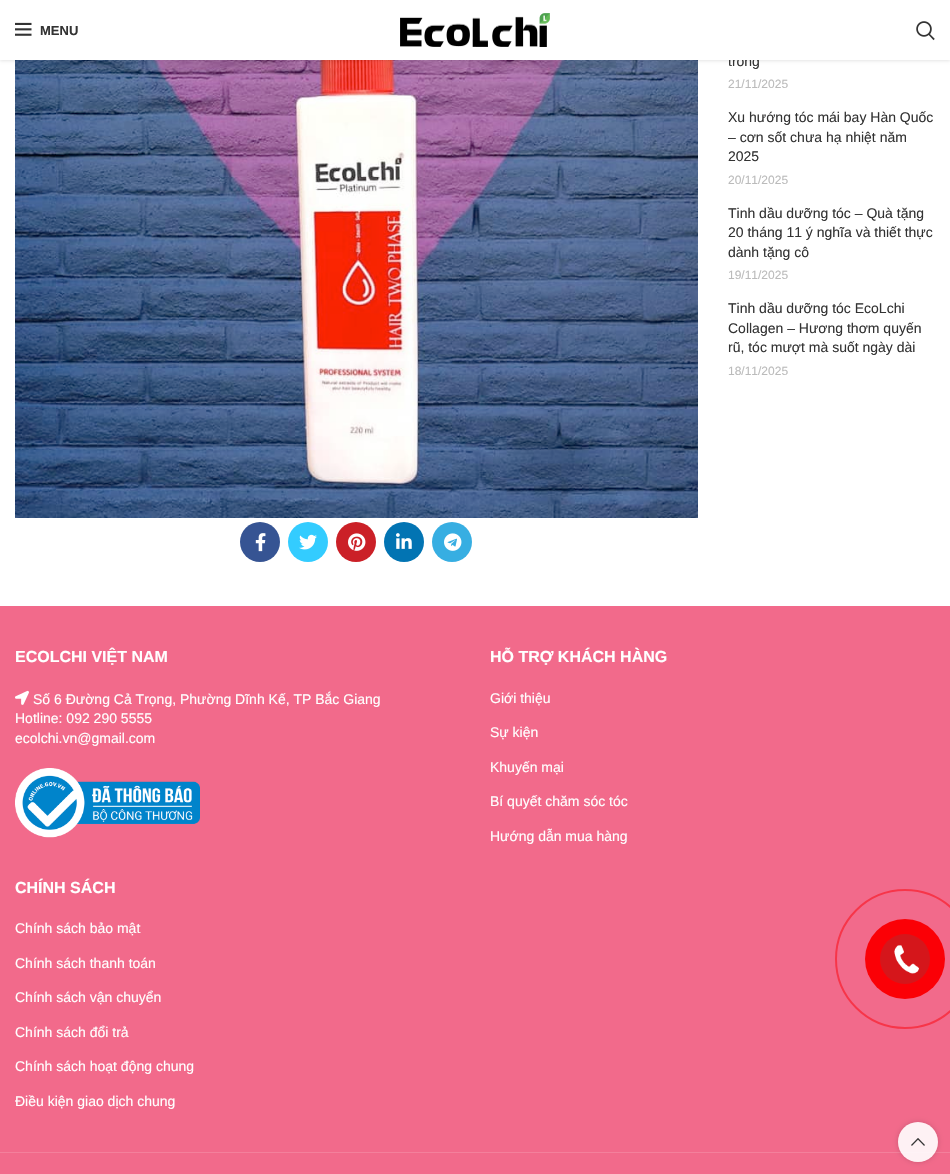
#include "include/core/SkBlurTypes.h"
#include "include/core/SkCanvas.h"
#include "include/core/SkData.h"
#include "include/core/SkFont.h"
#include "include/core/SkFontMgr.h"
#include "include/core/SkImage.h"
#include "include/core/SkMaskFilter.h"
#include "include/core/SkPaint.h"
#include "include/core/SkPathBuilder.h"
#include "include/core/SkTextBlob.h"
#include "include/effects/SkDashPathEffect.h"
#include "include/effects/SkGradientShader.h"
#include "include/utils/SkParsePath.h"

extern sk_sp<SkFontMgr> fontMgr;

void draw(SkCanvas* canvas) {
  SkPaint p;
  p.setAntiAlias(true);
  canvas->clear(SK_ColorWHITE);
  canvas->drawImageRect(SkImages::DeferredFromEncodedData(SkData::MakeFromFileName("images/4.png")), SkRect::MakeLTRB(15, 60, 698, 518), SkSamplingOptions());
  p.setColor(SkColorSetARGB(26, 0, 0, 0));
  p.setMaskFilter(SkMaskFilter::MakeBlur(kNormal_SkBlurStyle, 1.5f));
  canvas->drawRect(SkRect::MakeLTRB(0, 1, 950, 61), p);
  p.setMaskFilter(nullptr);
  p.setColor(SkColorSetRGB(54, 84, 147));
  canvas->drawCircle(260, 542, 20, p);
  canvas->drawImageRect(SkImages::DeferredFromEncodedData(SkData::MakeFromFileName("images/5.png")), SkRect::MakeLTRB(255, 533, 266, 552), SkSamplingOptions());
  p.setColor(SkColorSetRGB(51, 204, 255));
  canvas->drawCircle(308, 542, 20, p);
  canvas->drawImageRect(SkImages::DeferredFromEncodedData(SkData::MakeFromFileName("images/6.png")), SkRect::MakeLTRB(299, 534, 317, 550), SkSamplingOptions());
  p.setColor(SkColorSetRGB(203, 32, 39));
  canvas->drawCircle(356, 542, 20, p);
  canvas->drawImageRect(SkImages::DeferredFromEncodedData(SkData::MakeFromFileName("images/7.png")), SkRect::MakeLTRB(348, 533, 366, 551), SkSamplingOptions());
  p.setColor(SkColorSetRGB(2, 116, 179));
  canvas->drawCircle(404, 542, 20, p);
  canvas->drawImageRect(SkImages::DeferredFromEncodedData(SkData::MakeFromFileName("images/8.png")), SkRect::MakeLTRB(396, 533, 412, 549), SkSamplingOptions());
  p.setColor(SkColorSetRGB(55, 174, 226));
  canvas->drawCircle(452, 542, 20, p);
  canvas->drawImageRect(SkImages::DeferredFromEncodedData(SkData::MakeFromFileName("images/9.png")), SkRect::MakeLTRB(444, 533, 462, 551), SkSamplingOptions());
  p.setColor(SkColorSetRGB(242, 106, 139));
  canvas->drawRect(SkRect::MakeLTRB(0, 606, 950, 1174), p);
  canvas->drawImageRect(SkImages::DeferredFromEncodedData(SkData::MakeFromFileName("images/10.png")), SkRect::MakeLTRB(15, 690, 29, 705), SkSamplingOptions());
  canvas->drawImageRect(SkImages::DeferredFromEncodedData(SkData::MakeFromFileName("images/11.png")), SkRect::MakeLTRB(15, 768, 200, 838), SkSamplingOptions());
  p.setColor(SkColorSetRGB(244, 128, 156));
  canvas->drawRect(SkRect::MakeLTRB(0, 1152, 950, 1153), p);
  p.setStyle(SkPaint::kStroke_Style);
  p.setStrokeWidth(2);
  p.setColor(SkColorSetRGB(247, 53, 73));
  canvas->drawCircle(905, 959, 69, p);
  p.setStyle(SkPaint::kFill_Style);
  p.setColor(SkColorSetRGB(251, 0, 6));
  canvas->drawCircle(905, 959, 40, p);
  p.setColor(SkColorSetRGB(213, 22, 27));
  canvas->drawCircle(905, 959, 25, p);
  canvas->drawImageRect(SkImages::DeferredFromEncodedData(SkData::MakeFromFileName("images/12.png")), SkRect::MakeLTRB(894, 945, 919, 974), SkSamplingOptions());
  canvas->save();
  canvas->clipPath(SkPathBuilder(SkPathFillType::kEvenOdd).moveTo(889, 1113).lineTo(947, 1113).lineTo(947, 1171).lineTo(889, 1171).close().moveTo(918, 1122).cubicTo(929, 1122, 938, 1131, 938, 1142).cubicTo(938, 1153, 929, 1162, 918, 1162).cubicTo(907, 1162, 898, 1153, 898, 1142).cubicTo(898, 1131, 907, 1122, 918, 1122).close().detach(), true);
  p.setColor(SkColorSetARGB(43, 0, 0, 0));
  p.setMaskFilter(SkMaskFilter::MakeBlur(kNormal_SkBlurStyle, 2.5f));
  canvas->drawRoundRect(SkRect::MakeLTRB(898, 1122, 938, 1162), 20, 20, p);
  p.setMaskFilter(nullptr);
  canvas->restore();
  p.setColor(SkColorSetARGB(230, 255, 255, 255));
  canvas->drawCircle(918, 1142, 20, p);
  canvas->drawImageRect(SkImages::DeferredFromEncodedData(SkData::MakeFromFileName("images/13.png")), SkRect::MakeLTRB(911, 1138, 925, 1146), SkSamplingOptions());
  SkFont font1(fontMgr->matchFamilyStyle("Liberation Sans", SkFontStyle::Normal()), 14);
  font1.setSubpixel(true);
  p.setColor(SkColorSetRGB(51, 51, 51));
  canvas->drawString("trong", 728, 66, font1, p);
  p.setColor(SK_ColorWHITE);
  canvas->drawRect(SkRect::MakeLTRB(0, 0, 950, 60), p);
  canvas->drawImageRect(SkImages::DeferredFromEncodedData(SkData::MakeFromFileName("images/3.png")), SkRect::MakeLTRB(916, 21, 935, 41), SkSamplingOptions());
  canvas->drawImageRect(SkImages::DeferredFromEncodedData(SkData::MakeFromFileName("images/2.png")), SkRect::MakeLTRB(400, 13, 550, 47), SkSamplingOptions());
  canvas->drawImageRect(SkImages::DeferredFromEncodedData(SkData::MakeFromFileName("images/1.png")), SkRect::MakeLTRB(15, 22, 32, 36), SkSamplingOptions());
  SkFont font2(fontMgr->matchFamilyStyle("Liberation Sans", SkFontStyle::Bold()), 13);
  font2.setSubpixel(true);
  p.setColor(SkColorSetRGB(51, 51, 51));
  canvas->drawString("MENU", 40, 35, font2, p);
  SkFont font3(fontMgr->matchFamilyStyle("Liberation Sans", SkFontStyle::Normal()), 12);
  font3.setSubpixel(true);
  p.setColor(SkColorSetRGB(187, 187, 187));
  canvas->drawString("21/11/2025", 728, 88, font3, p);
  p.setColor(SkColorSetRGB(51, 51, 51));
  canvas->drawString("Xu hướng tóc mái bay Hàn Quốc", 728, 122, font1, p);
  canvas->drawString("– cơn sốt chưa hạ nhiệt năm", 728, 142, font1, p);
  canvas->drawString("2025", 728, 161, font1, p);
  p.setColor(SkColorSetRGB(187, 187, 187));
  canvas->drawString("20/11/2025", 728, 184, font3, p);
  p.setColor(SkColorSetRGB(51, 51, 51));
  canvas->drawString("Tinh dầu dưỡng tóc – Quà tặng", 728, 218, font1, p);
  canvas->drawString("20 tháng 11 ý nghĩa và thiết thực", 728, 237, font1, p);
  canvas->drawString("dành tặng cô", 728, 257, font1, p);
  p.setColor(SkColorSetRGB(187, 187, 187));
  canvas->drawString("19/11/2025", 728, 279, font3, p);
  p.setColor(SkColorSetRGB(51, 51, 51));
  canvas->drawString("Tinh dầu dưỡng tóc EcoLchi", 728, 313, font1, p);
  canvas->drawString("Collagen – Hương thơm quyến", 728, 333, font1, p);
  canvas->drawString("rũ, tóc mượt mà suốt ngày dài", 728, 352, font1, p);
  p.setColor(SkColorSetRGB(187, 187, 187));
  canvas->drawString("18/11/2025", 728, 375, font3, p);
  SkFont font4(fontMgr->matchFamilyStyle("Liberation Sans", SkFontStyle::Bold()), 16);
  font4.setSubpixel(true);
  p.setColor(SK_ColorWHITE);
  canvas->drawString("ECOLCHI VIỆT NAM", 15, 662, font4, p);
  canvas->drawString("Số 6 Đường Cả Trọng, Phường Dĩnh Kế, TP Bắc Giang", 33, 704, font1, p);
  canvas->drawString("Hotline: 092 290 5555", 15, 723, font1, p);
  canvas->drawString("ecolchi.vn@gmail.com", 15, 743, font1, p);
  canvas->drawString("HỖ TRỢ KHÁCH HÀNG", 490, 662, font4, p);
  canvas->drawString("Giới thiệu", 490, 703, font1, p);
  canvas->drawString("Sự kiện", 490, 737, font1, p);
  canvas->drawString("Khuyến mại", 490, 772, font1, p);
  canvas->drawString("Bí quyết chăm sóc tóc", 490, 806, font1, p);
  canvas->drawString("Hướng dẫn mua hàng", 490, 841, font1, p);
  canvas->drawString("CHÍNH SÁCH", 15, 893, font4, p);
  canvas->drawString("Chính sách bảo mật", 15, 933, font1, p);
  canvas->drawString("Chính sách thanh toán", 15, 968, font1, p);
  canvas->drawString("Chính sách vận chuyển", 15, 1002, font1, p);
  canvas->drawString("Chính sách đổi trả", 15, 1037, font1, p);
  canvas->drawString("Chính sách hoạt động chung", 15, 1071, font1, p);
  canvas->drawString("Điều kiện giao dịch chung", 15, 1106, font1, p);
}
